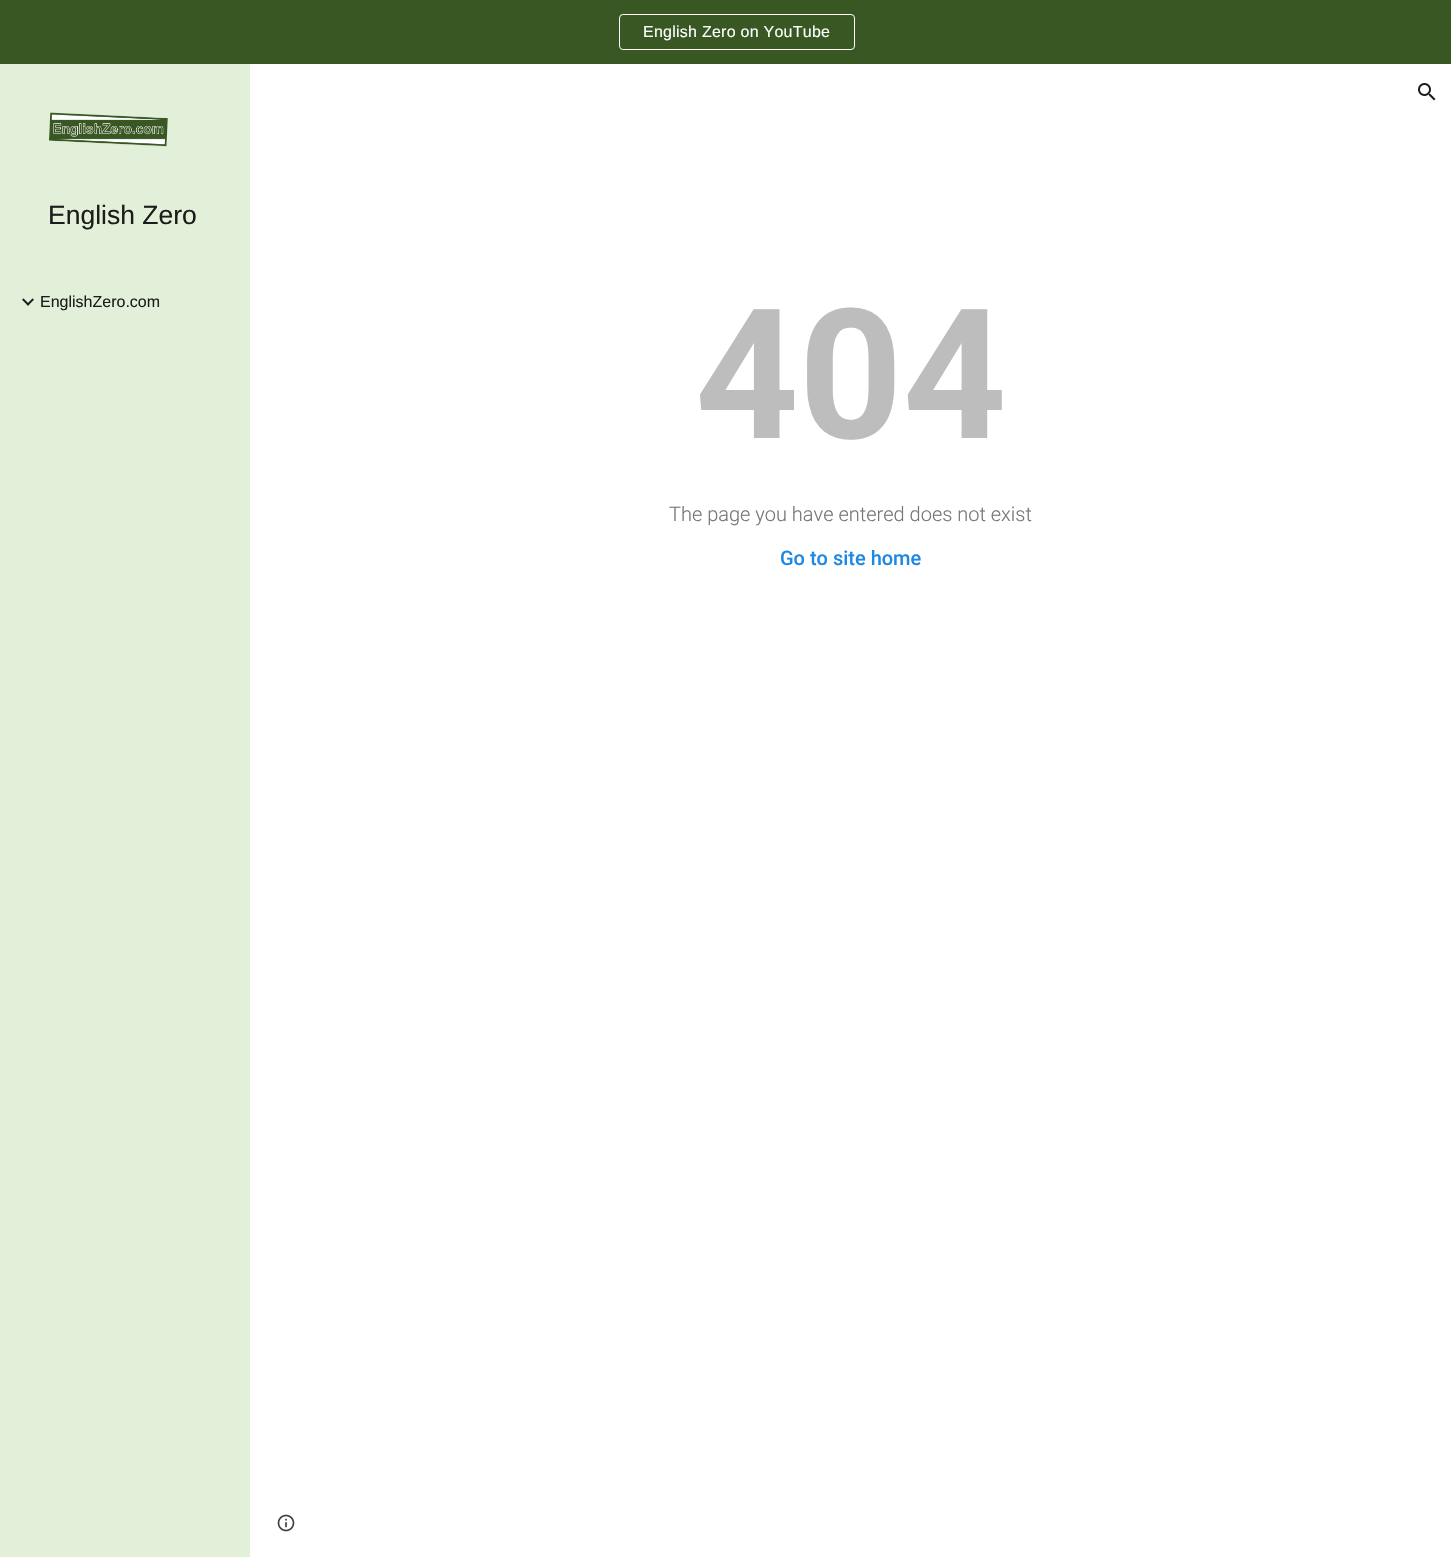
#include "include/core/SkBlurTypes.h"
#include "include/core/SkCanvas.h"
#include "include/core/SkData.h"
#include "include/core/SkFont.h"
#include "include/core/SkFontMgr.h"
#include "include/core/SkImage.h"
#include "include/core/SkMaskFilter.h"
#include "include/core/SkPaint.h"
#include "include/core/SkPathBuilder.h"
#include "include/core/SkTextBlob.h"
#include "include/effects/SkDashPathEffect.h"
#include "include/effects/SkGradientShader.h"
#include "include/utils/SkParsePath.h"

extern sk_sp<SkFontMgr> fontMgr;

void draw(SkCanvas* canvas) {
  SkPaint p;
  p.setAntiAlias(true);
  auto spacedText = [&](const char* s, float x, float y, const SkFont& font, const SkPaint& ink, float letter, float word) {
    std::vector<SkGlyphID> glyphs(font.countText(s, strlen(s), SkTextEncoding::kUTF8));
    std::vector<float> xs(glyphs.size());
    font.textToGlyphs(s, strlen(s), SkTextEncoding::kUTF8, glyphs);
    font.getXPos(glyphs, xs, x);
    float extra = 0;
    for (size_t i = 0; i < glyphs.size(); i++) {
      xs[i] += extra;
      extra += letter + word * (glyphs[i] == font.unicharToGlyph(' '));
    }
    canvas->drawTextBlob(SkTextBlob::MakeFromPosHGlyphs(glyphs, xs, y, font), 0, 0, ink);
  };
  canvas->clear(SK_ColorWHITE);
  p.setColor(SkColorSetRGB(56, 87, 35));
  canvas->drawRect(SkRect::MakeLTRB(0, 0, 1451, 64), p);
  p.setStyle(SkPaint::kStroke_Style);
  p.setStrokeWidth(1);
  p.setColor(SK_ColorWHITE);
  canvas->drawRoundRect(SkRect::MakeLTRB(619.5f, 14.5f, 854.5f, 49.5f), 3.5f, 3.5f, p);
  canvas->drawImageRect(SkImages::DeferredFromEncodedData(SkData::MakeFromFileName("images/1.png")), SkRect::MakeLTRB(1418, 83, 1436, 101), SkSamplingOptions());
  p.setStyle(SkPaint::kFill_Style);
  p.setColor(SkColorSetRGB(226, 240, 217));
  canvas->drawRect(SkRect::MakeLTRB(0, 64, 250, 1557), p);
  canvas->drawImageRect(SkImages::DeferredFromEncodedData(SkData::MakeFromFileName("images/2.png")), SkRect::MakeLTRB(49, 112, 168, 147), SkSamplingOptions());
  canvas->drawImageRect(SkImages::DeferredFromEncodedData(SkData::MakeFromFileName("images/3.png")), SkRect::MakeLTRB(22, 298, 34, 306), SkSamplingOptions());
  canvas->drawImageRect(SkImages::DeferredFromEncodedData(SkData::MakeFromFileName("images/4.png")), SkRect::MakeLTRB(277, 1514, 295, 1532), SkSamplingOptions());
  SkFont font1(fontMgr->matchFamilyStyle("Liberation Sans", SkFontStyle::Normal()), 16);
  font1.setSubpixel(true);
  p.setColor(SK_ColorWHITE);
  spacedText("English Zero on YouTube", 643, 37, font1, p, 0.25f, 0);
  SkFont font2(fontMgr->matchFamilyStyle("Liberation Sans", SkFontStyle::Normal()), 26.5f);
  font2.setSubpixel(true);
  p.setColor(SkColorSetRGB(28, 28, 28));
  canvas->drawString("English Zero", 48, 224, font2, p);
  canvas->drawString("EnglishZero.com", 40, 307, font1, p);
  SkFont font3(fontMgr->matchFamilyStyle("Roboto", SkFontStyle::Bold()), 181);
  font3.setSubpixel(true);
  p.setColor(SkColorSetRGB(189, 189, 189));
  canvas->drawString("404", 695, 438, font3, p);
  SkFont font4(fontMgr->matchFamilyStyle("Roboto", SkFontStyle(300, SkFontStyle::kNormal_Width, SkFontStyle::kUpright_Slant)), 20);
  font4.setSubpixel(true);
  p.setColor(SkColorSetRGB(117, 117, 117));
  canvas->drawString("The page you have entered does not exist", 669, 521, font4, p);
  SkFont font5(fontMgr->matchFamilyStyle("Roboto", SkFontStyle(500, SkFontStyle::kNormal_Width, SkFontStyle::kUpright_Slant)), 20);
  font5.setSubpixel(true);
  p.setColor(SkColorSetRGB(30, 136, 229));
  canvas->drawString("Go to site home", 780, 565, font5, p);
}
